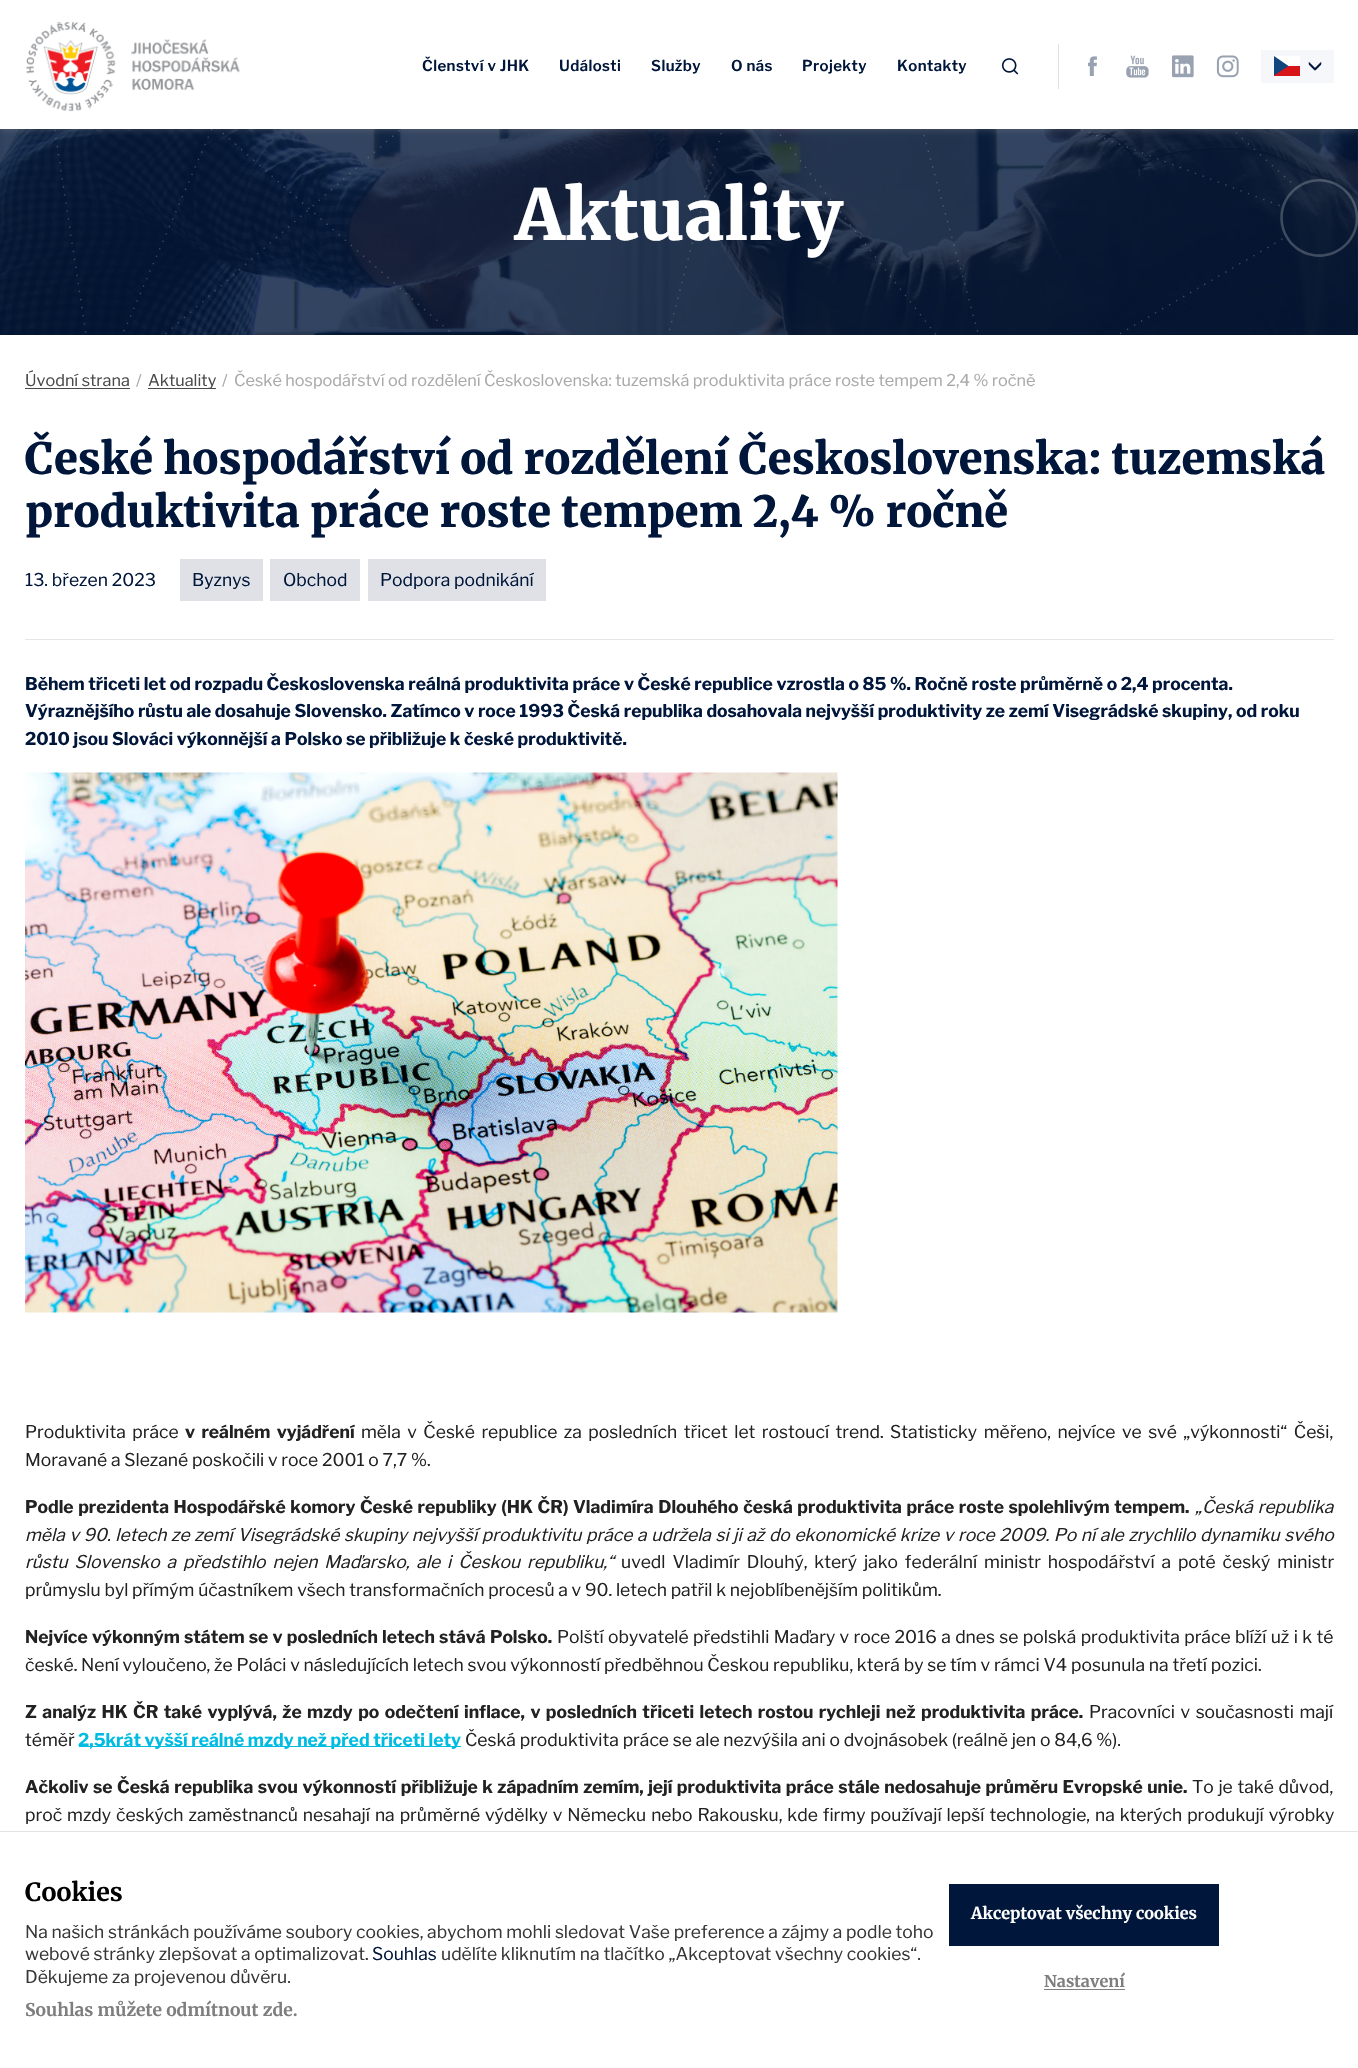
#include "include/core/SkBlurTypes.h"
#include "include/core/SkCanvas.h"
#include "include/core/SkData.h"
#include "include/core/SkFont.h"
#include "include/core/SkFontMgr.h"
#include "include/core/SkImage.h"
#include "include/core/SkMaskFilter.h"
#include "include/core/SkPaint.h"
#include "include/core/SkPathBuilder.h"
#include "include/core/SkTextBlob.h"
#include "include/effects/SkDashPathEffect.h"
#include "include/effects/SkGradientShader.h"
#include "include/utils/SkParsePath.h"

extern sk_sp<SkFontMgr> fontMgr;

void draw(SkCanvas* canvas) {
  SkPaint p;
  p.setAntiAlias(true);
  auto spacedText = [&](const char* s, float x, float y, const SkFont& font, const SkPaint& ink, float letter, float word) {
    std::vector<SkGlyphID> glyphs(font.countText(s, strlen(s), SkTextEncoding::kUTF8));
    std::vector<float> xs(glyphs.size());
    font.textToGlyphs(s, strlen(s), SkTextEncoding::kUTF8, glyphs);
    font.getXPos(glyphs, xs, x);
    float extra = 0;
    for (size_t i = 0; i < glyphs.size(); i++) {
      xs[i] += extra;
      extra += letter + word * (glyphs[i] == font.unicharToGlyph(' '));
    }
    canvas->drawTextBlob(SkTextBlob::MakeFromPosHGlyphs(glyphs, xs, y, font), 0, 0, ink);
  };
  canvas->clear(SK_ColorWHITE);
  canvas->drawImageRect(SkImages::DeferredFromEncodedData(SkData::MakeFromFileName("images/8.png")), SkRect::MakeLTRB(0, 129, 1358, 335), SkSamplingOptions());
  canvas->drawImageRect(SkImages::DeferredFromEncodedData(SkData::MakeFromFileName("images/9.png")), SkRect::MakeLTRB(54, 129, 1358, 335), SkSamplingOptions());
  p.setColor(SkColorSetARGB(77, 133, 133, 133));
  p.setMaskFilter(SkMaskFilter::MakeBlur(kNormal_SkBlurStyle, 3));
  canvas->drawRect(SkRect::MakeLTRB(0, 3, 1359, 131), p);
  p.setMaskFilter(nullptr);
  p.setColor(SK_ColorWHITE);
  canvas->drawRect(SkRect::MakeLTRB(0, 0, 1358, 129), p);
  canvas->drawImageRect(SkImages::DeferredFromEncodedData(SkData::MakeFromFileName("images/1.png")), SkRect::MakeLTRB(26, 22, 240, 112), SkSamplingOptions());
  canvas->drawImageRect(SkImages::DeferredFromEncodedData(SkData::MakeFromFileName("images/2.png")), SkRect::MakeLTRB(1001, 58, 1019, 75), SkSamplingOptions());
  p.setColor(SkColorSetRGB(223, 225, 230));
  canvas->drawRect(SkRect::MakeLTRB(1058, 44, 1059, 89), p);
  canvas->drawImageRect(SkImages::DeferredFromEncodedData(SkData::MakeFromFileName("images/3.png")), SkRect::MakeLTRB(1088, 56, 1097, 76), SkSamplingOptions());
  canvas->drawImageRect(SkImages::DeferredFromEncodedData(SkData::MakeFromFileName("images/4.png")), SkRect::MakeLTRB(1126, 55, 1149, 78), SkSamplingOptions());
  canvas->drawImageRect(SkImages::DeferredFromEncodedData(SkData::MakeFromFileName("images/5.png")), SkRect::MakeLTRB(1172, 55, 1194, 78), SkSamplingOptions());
  canvas->drawImageRect(SkImages::DeferredFromEncodedData(SkData::MakeFromFileName("images/6.png")), SkRect::MakeLTRB(1216, 55, 1239, 78), SkSamplingOptions());
  p.setColor(SkColorSetRGB(246, 247, 250));
  canvas->drawRect(SkRect::MakeLTRB(1261, 50, 1334, 83), p);
  p.setColor(SK_ColorWHITE);
  canvas->drawRect(SkRect::MakeLTRB(1274, 56, 1300, 66), p);
  p.setColor(SkColorSetRGB(215, 20, 26));
  canvas->drawRect(SkRect::MakeLTRB(1274, 66, 1300, 76), p);
  p.setColor(SkColorSetRGB(17, 69, 126));
  canvas->drawPath(SkPathBuilder().moveTo(1288.5f, 66).lineTo(1274, 56).lineTo(1274, 75.5f).close().detach(), p);
  canvas->drawImageRect(SkImages::DeferredFromEncodedData(SkData::MakeFromFileName("images/7.png")), SkRect::MakeLTRB(1308, 62, 1322, 71), SkSamplingOptions());
  p.setColor(SkColorSetRGB(74, 74, 74));
  canvas->drawRect(SkRect::MakeLTRB(25, 388, 130, 389), p);
  canvas->drawRect(SkRect::MakeLTRB(148, 388, 216, 389), p);
  p.setColor(SkColorSetRGB(223, 225, 230));
  canvas->drawRect(SkRect::MakeLTRB(180, 559, 263, 601), p);
  canvas->drawRect(SkRect::MakeLTRB(270, 559, 360, 601), p);
  canvas->drawRect(SkRect::MakeLTRB(368, 559, 546, 601), p);
  p.setColor(SkColorSetRGB(230, 230, 230));
  canvas->drawRect(SkRect::MakeLTRB(25, 639, 1334, 640), p);
  canvas->drawImageRect(SkImages::DeferredFromEncodedData(SkData::MakeFromFileName("images/10.png")), SkRect::MakeLTRB(25, 772, 838, 1313), SkSamplingOptions());
  p.setColor(SkColorSetRGB(0, 188, 226));
  canvas->drawRect(SkRect::MakeLTRB(79, 1746, 461, 1747), p);
  p.setColor(SkColorSetRGB(227, 227, 227));
  canvas->drawRect(SkRect::MakeLTRB(0, 1831, 1358, 1832), p);
  p.setColor(SkColorSetRGB(0, 22, 58));
  canvas->drawRect(SkRect::MakeLTRB(949, 1884, 1219, 1946), p);
  p.setColor(SkColorSetRGB(126, 126, 126));
  canvas->drawRect(SkRect::MakeLTRB(1044, 1989, 1125, 1990), p);
  SkFont font1(fontMgr->matchFamilyStyle("Libre Franklin", SkFontStyle(600, SkFontStyle::kNormal_Width, SkFontStyle::kUpright_Slant)), 15);
  font1.setSubpixel(true);
  p.setColor(SkColorSetRGB(0, 22, 58));
  spacedText("Členství v JHK", 422, 71, font1, p, 0.4f, 0);
  spacedText("Události", 559, 71, font1, p, 0.4f, 0);
  spacedText("Služby", 651, 71, font1, p, 0.4f, 0);
  spacedText("O nás", 731, 71, font1, p, 0.4f, 0);
  spacedText("Projekty", 802, 71, font1, p, 0.4f, 0);
  spacedText("Kontakty", 897, 71, font1, p, 0.4f, 0);
  SkFont font2(fontMgr->matchFamilyStyle("Merriweather", SkFontStyle(900, SkFontStyle::kNormal_Width, SkFontStyle::kUpright_Slant)), 70);
  font2.setSubpixel(true);
  p.setColor(SK_ColorWHITE);
  canvas->drawString("Aktuality", 515, 240, font2, p);
  SkFont font3(fontMgr->matchFamilyStyle("Libre Franklin", SkFontStyle::Normal()), 16.25f);
  font3.setSubpixel(true);
  p.setColor(SkColorSetRGB(74, 74, 74));
  canvas->drawString("Úvodní strana", 25, 386, font3, p);
  p.setColor(SkColorSetRGB(169, 169, 169));
  canvas->drawString("/", 136, 386, font3, p);
  p.setColor(SkColorSetRGB(74, 74, 74));
  canvas->drawString("Aktuality", 148, 386, font3, p);
  p.setColor(SkColorSetRGB(169, 169, 169));
  canvas->drawString("/", 222, 386, font3, p);
  canvas->drawString("České hospodářství od rozdělení Československa: tuzemská produktivita práce roste tempem 2,4 % ročně", 234, 386, font3, p);
  SkFont font4(fontMgr->matchFamilyStyle("Merriweather", SkFontStyle(900, SkFontStyle::kNormal_Width, SkFontStyle::kUpright_Slant)), 43.25f);
  font4.setSubpixel(true);
  p.setColor(SkColorSetRGB(0, 22, 58));
  canvas->drawString("České hospodářství od rozdělení Československa: tuzemská", 25, 474, font4, p);
  canvas->drawString("produktivita práce roste tempem 2,4 % ročně", 25, 527, font4, p);
  SkFont font5(fontMgr->matchFamilyStyle("Libre Franklin", SkFontStyle::Normal()), 17.5f);
  font5.setSubpixel(true);
  canvas->drawString("13. březen 2023", 25, 586, font5, p);
  canvas->drawString("Byznys", 192, 586, font5, p);
  canvas->drawString("Obchod", 283, 586, font5, p);
  canvas->drawString("Podpora podnikání", 380, 586, font5, p);
  SkFont font6(fontMgr->matchFamilyStyle("Libre Franklin", SkFontStyle::Bold()), 17.5f);
  font6.setSubpixel(true);
  canvas->drawString("Během třiceti let od rozpadu Československa reálná produktivita práce v České republice vzrostla o 85 %. Ročně roste průměrně o 2,4 procenta.", 25, 690, font6, p);
  canvas->drawString("Výraznějšího růstu ale dosahuje Slovensko. Zatímco v roce 1993 Česká republika dosahovala nejvyšší produktivity ze zemí Visegrádské skupiny, od roku", 25, 717, font6, p);
  canvas->drawString("2010 jsou Slováci výkonnější a Polsko se přibližuje k české produktivitě.", 25, 745, font6, p);
  p.setColor(SkColorSetRGB(34, 34, 34));
  spacedText("Produktivita práce", 25, 1438, font5, p, 0, 2.75f);
  spacedText("v reálném vyjádření", 185, 1438, font6, p, 0, 2.75f);
  spacedText("měla v České republice za posledních třicet let rostoucí trend. Statisticky měřeno, nejvíce ve své „výkonnosti“ Češi,", 361, 1438, font5, p, 0, 2.75f);
  canvas->drawString("Moravané a Slezané poskočili v roce 2001 o 7,7 %.", 25, 1466, font5, p);
  spacedText("Podle prezidenta Hospodářské komory České republiky (HK ČR) Vladimíra Dlouhého česká produktivita práce roste spolehlivým tempem.", 25, 1513, font6, p, 0, 1);
  SkFont font7(fontMgr->matchFamilyStyle("Libre Franklin", SkFontStyle::Italic()), 17.5f);
  font7.setSubpixel(true);
  spacedText("„Česká republika", 1195, 1513, font7, p, 0, 1);
  spacedText("měla v 90. letech ze zemí Visegrádské skupiny nejvyšší produktivitu práce a udržela si ji až do ekonomické krize v roce 2009. Po ní ale zrychlilo dynamiku svého", 25, 1541, font7, p, 0, 0.85f);
  spacedText("růstu Slovensko a předstihlo nejen Maďarsko, ale i Českou republiku,“", 25, 1568, font7, p, 0, 3.1f);
  spacedText("uvedl Vladimír Dlouhý, který jako federální ministr hospodářství a poté český ministr", 621, 1568, font5, p, 0, 3.1f);
  canvas->drawString("průmyslu byl přímým účastníkem všech transformačních procesů a v 90. letech patřil k nejoblíbenějším politikům.", 25, 1596, font5, p);
  spacedText("Nejvíce výkonným státem se v posledních letech stává Polsko.", 25, 1643, font6, p, 0, 0.6f);
  spacedText("Polští obyvatelé předstihli Maďary v roce 2016 a dnes se polská produktivita práce blíží už i k té", 557, 1643, font5, p, 0, 0.6f);
  canvas->drawString("české. Není vyloučeno, že Poláci v následujících letech svou výkonností předběhnou Českou republiku, která by se tím v rámci V4 posunula na třetí pozici.", 25, 1671, font5, p);
  spacedText("Z analýz HK ČR také vyplývá, že mzdy po odečtení inflace, v posledních třiceti letech rostou rychleji než produktivita práce.", 25, 1718, font6, p, 0, 1.8f);
  spacedText("Pracovníci v současnosti mají", 1089, 1718, font5, p, 0, 1.8f);
  canvas->drawString("téměř", 25, 1746, font5, p);
  p.setColor(SkColorSetRGB(0, 188, 226));
  canvas->drawString("2,5krát vyšší reálné mzdy než před třiceti lety", 78, 1746, font6, p);
  p.setColor(SkColorSetRGB(34, 34, 34));
  canvas->drawString("Česká produktivita práce se ale nezvýšila ani o dvojnásobek (reálně jen o 84,6 %).", 465, 1746, font5, p);
  spacedText("Ačkoliv se Česká republika svou výkonností přibližuje k západním zemím, její produktivita práce stále nedosahuje průměru Evropské unie.", 25, 1793, font6, p, 0, 0.9f);
  spacedText("To je také důvod,", 1192, 1793, font5, p, 0, 0.9f);
  spacedText("proč mzdy českých zaměstnanců nesahají na průměrné výdělky v Německu nebo Rakousku, kde firmy používají lepší technologie, na kterých produkují výrobky", 25, 1821, font5, p, 0, 1.2f);
  SkFont font8(fontMgr->matchFamilyStyle("Merriweather", SkFontStyle::Bold()), 25);
  font8.setSubpixel(true);
  p.setColor(SK_ColorBLACK);
  canvas->drawString("Cookies", 25, 1901, font8, p);
  p.setColor(SkColorSetRGB(55, 55, 55));
  canvas->drawString("Na našich stránkách používáme soubory cookies, abychom mohli sledovat Vaše preference a zájmy a podle toho", 25, 1938, font5, p);
  canvas->drawString("webové stránky zlepšovat a optimalizovat.", 25, 1960, font5, p);
  p.setColor(SkColorSetRGB(0, 22, 58));
  canvas->drawString("Souhlas", 372, 1960, font5, p);
  p.setColor(SkColorSetRGB(55, 55, 55));
  canvas->drawString("udělíte kliknutím na tlačítko „Akceptovat všechny cookies“.", 441, 1960, font5, p);
  canvas->drawString("Děkujeme za projevenou důvěru.", 25, 1983, font5, p);
  SkFont font9(fontMgr->matchFamilyStyle("Merriweather", SkFontStyle::Bold()), 17.5f);
  font9.setSubpixel(true);
  p.setColor(SkColorSetRGB(126, 126, 126));
  canvas->drawString("Souhlas můžete odmítnout zde.", 25, 2016, font9, p);
  SkFont font10(fontMgr->matchFamilyStyle("Merriweather", SkFontStyle::Bold()), 16.25f);
  font10.setSubpixel(true);
  p.setColor(SK_ColorWHITE);
  canvas->drawString("Akceptovat všechny cookies", 971, 1919, font10, p);
  p.setColor(SkColorSetRGB(126, 126, 126));
  canvas->drawString("Nastavení", 1044, 1987, font10, p);
}
